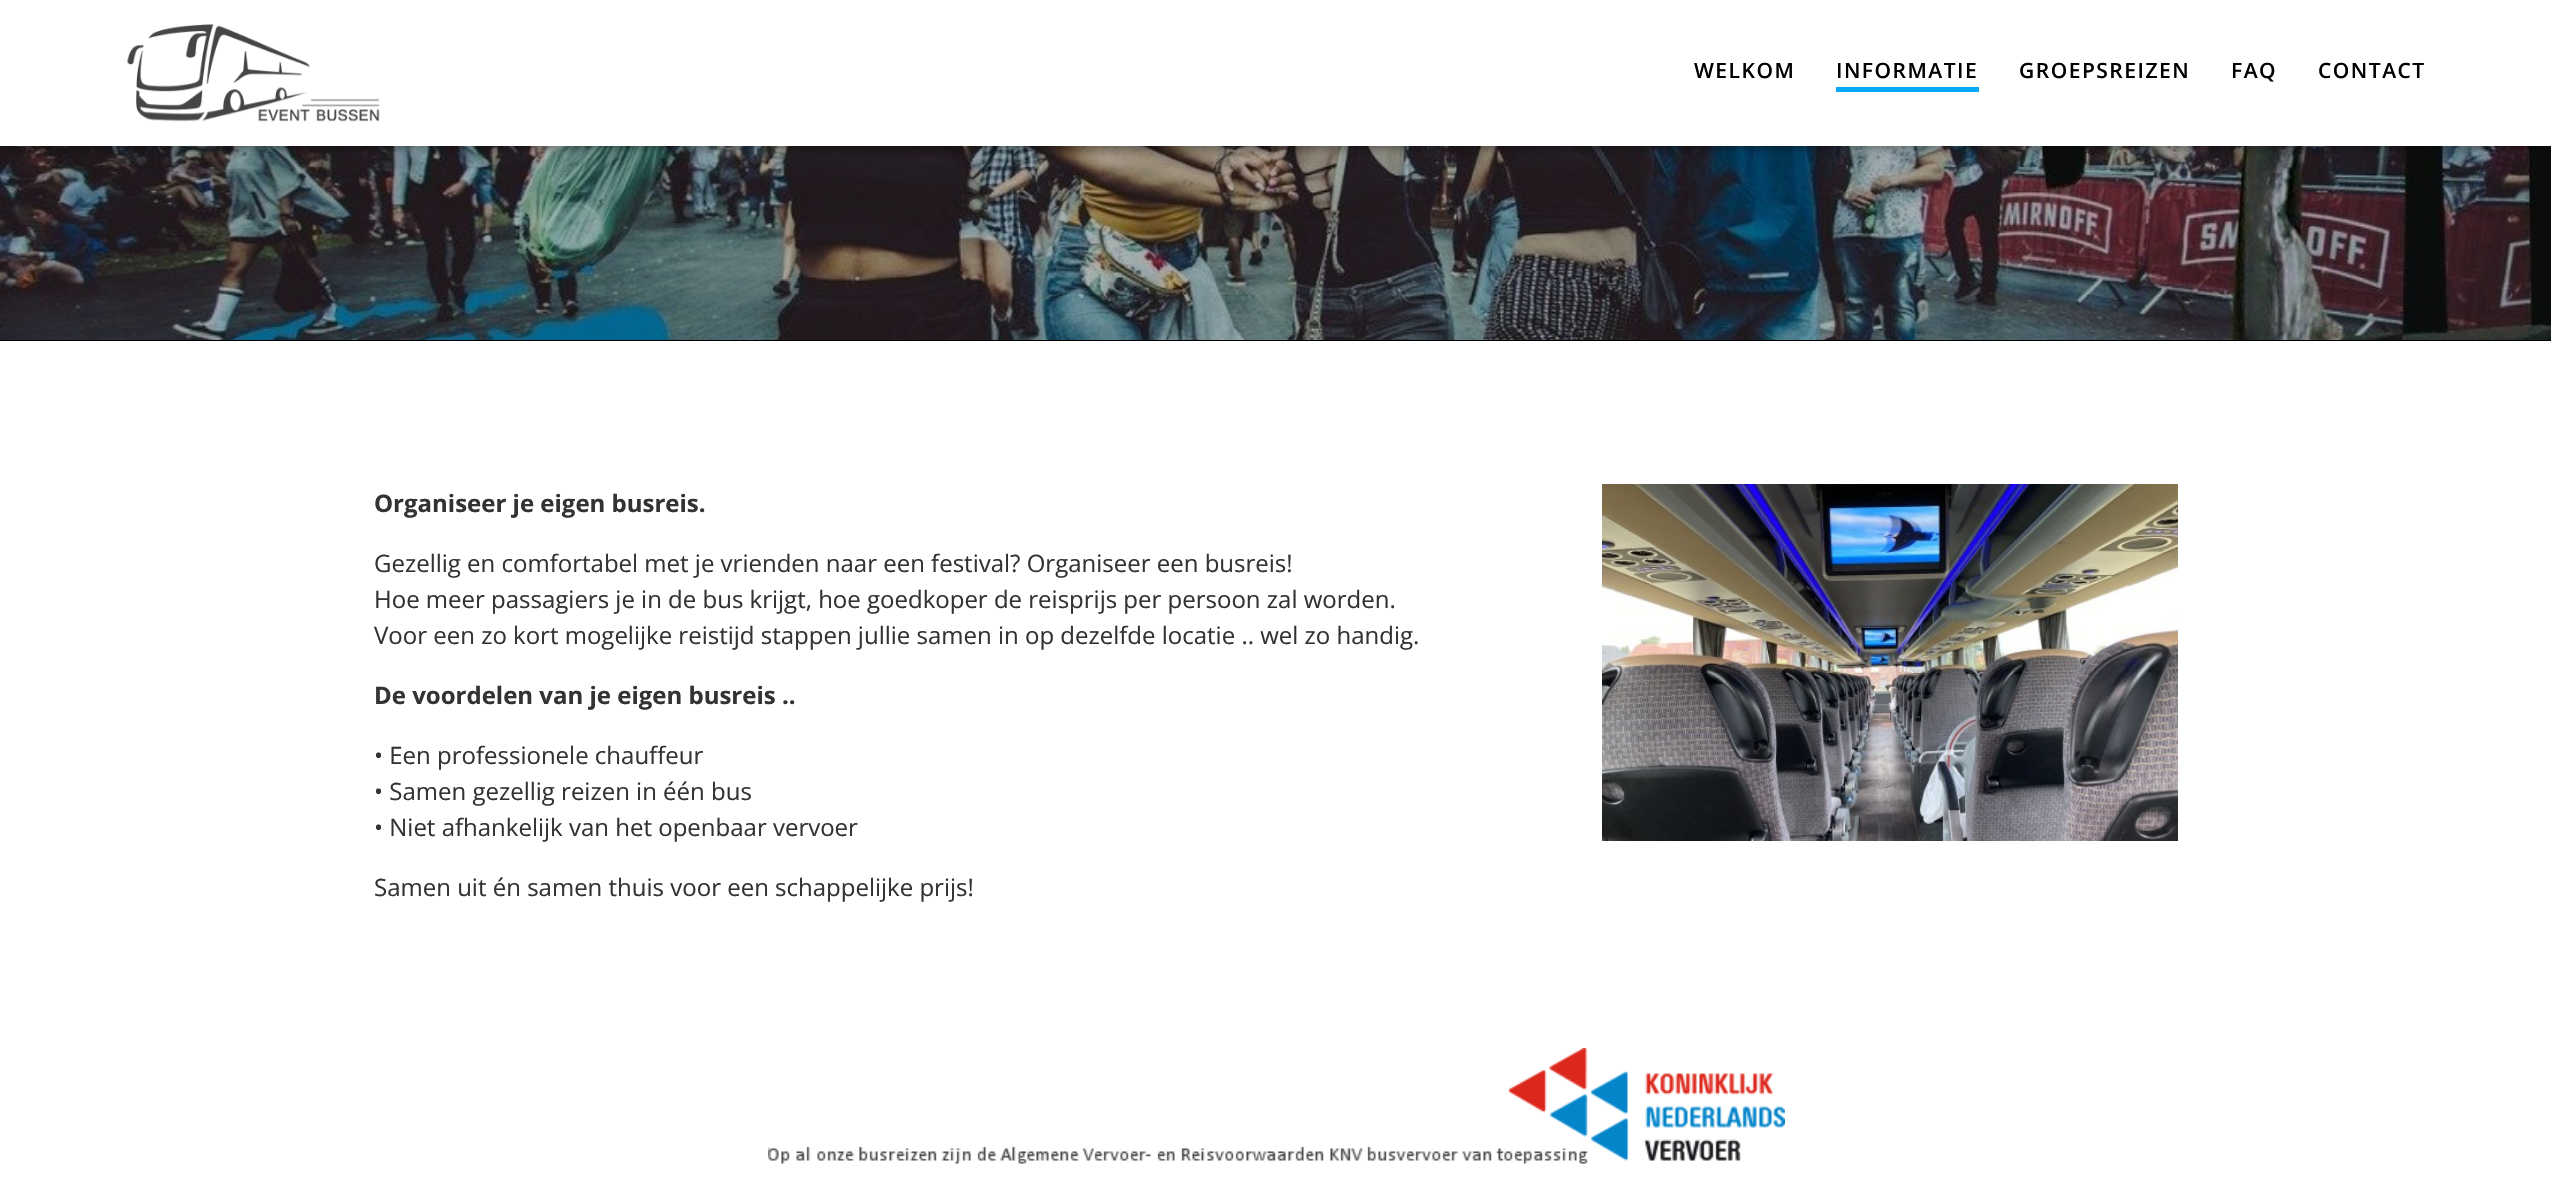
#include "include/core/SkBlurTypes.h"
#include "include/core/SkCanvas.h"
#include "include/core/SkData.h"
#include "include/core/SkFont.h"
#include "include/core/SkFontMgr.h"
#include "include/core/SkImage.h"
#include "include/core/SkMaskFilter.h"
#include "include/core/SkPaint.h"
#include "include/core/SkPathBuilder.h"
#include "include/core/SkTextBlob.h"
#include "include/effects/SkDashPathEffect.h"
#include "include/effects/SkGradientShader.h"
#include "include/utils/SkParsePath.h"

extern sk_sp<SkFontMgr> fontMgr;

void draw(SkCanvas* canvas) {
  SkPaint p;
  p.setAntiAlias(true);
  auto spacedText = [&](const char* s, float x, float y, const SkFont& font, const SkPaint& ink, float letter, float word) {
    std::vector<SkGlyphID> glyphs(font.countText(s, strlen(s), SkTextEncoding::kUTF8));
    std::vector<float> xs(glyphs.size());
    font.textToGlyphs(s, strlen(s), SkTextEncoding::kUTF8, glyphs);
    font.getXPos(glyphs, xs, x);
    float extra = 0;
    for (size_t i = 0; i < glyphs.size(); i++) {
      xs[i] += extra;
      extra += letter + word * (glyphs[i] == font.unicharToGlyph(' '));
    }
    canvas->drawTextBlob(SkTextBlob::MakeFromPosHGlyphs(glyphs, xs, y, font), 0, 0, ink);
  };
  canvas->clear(SK_ColorWHITE);
  canvas->drawImageRect(SkImages::DeferredFromEncodedData(SkData::MakeFromFileName("images/2.png")), SkRect::MakeLTRB(0, 146, 2551, 340), SkSamplingOptions());
  canvas->drawImageRect(SkImages::DeferredFromEncodedData(SkData::MakeFromFileName("images/3.png")), SkRect::MakeLTRB(924, 146, 2352, 340), SkSamplingOptions());
  p.setColor(SkColorSetARGB(84, 0, 0, 0));
  p.setMaskFilter(SkMaskFilter::MakeBlur(kNormal_SkBlurStyle, 4));
  canvas->drawRect(SkRect::MakeLTRB(-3, -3, 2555, 149), p);
  p.setMaskFilter(nullptr);
  p.setColor(SK_ColorWHITE);
  canvas->drawRect(SkRect::MakeLTRB(0, 0, 2551, 146), p);
  canvas->drawImageRect(SkImages::DeferredFromEncodedData(SkData::MakeFromFileName("images/1.png")), SkRect::MakeLTRB(127, 24, 380, 122), SkSamplingOptions());
  p.setColor(SkColorSetRGB(3, 169, 244));
  canvas->drawRect(SkRect::MakeLTRB(1836, 87, 1979, 92), p);
  p.setColor(SK_ColorBLACK);
  canvas->drawRect(SkRect::MakeLTRB(0, 340, 2551, 341), p);
  canvas->drawImageRect(SkImages::DeferredFromEncodedData(SkData::MakeFromFileName("images/4.png")), SkRect::MakeLTRB(1602, 484, 2178, 841), SkSamplingOptions());
  canvas->drawImageRect(SkImages::DeferredFromEncodedData(SkData::MakeFromFileName("images/5.png")), SkRect::MakeLTRB(768, 1048, 1785, 1164), SkSamplingOptions());
  SkFont font1(fontMgr->matchFamilyStyle("Open Sans", SkFontStyle(600, SkFontStyle::kNormal_Width, SkFontStyle::kUpright_Slant)), 21);
  font1.setSubpixel(true);
  spacedText("WELKOM", 1694, 78, font1, p, 1.5f, 0);
  spacedText("INFORMATIE", 1836, 78, font1, p, 1.5f, 0);
  spacedText("GROEPSREIZEN", 2019, 78, font1, p, 1.5f, 0);
  spacedText("FAQ", 2231, 78, font1, p, 1.5f, 0);
  spacedText("CONTACT", 2318, 78, font1, p, 1.5f, 0);
  SkFont font2(fontMgr->matchFamilyStyle("Open Sans", SkFontStyle::Bold()), 24);
  font2.setSubpixel(true);
  p.setColor(SkColorSetRGB(51, 51, 51));
  canvas->drawString("Organiseer je eigen busreis.", 374, 512, font2, p);
  SkFont font3(fontMgr->matchFamilyStyle("Open Sans", SkFontStyle::Normal()), 24);
  font3.setSubpixel(true);
  canvas->drawString("Gezellig en comfortabel met je vrienden naar een festival? Organiseer een busreis!", 374, 572, font3, p);
  canvas->drawString("Hoe meer passagiers je in de bus krijgt, hoe goedkoper de reisprijs per persoon zal worden.", 374, 608, font3, p);
  canvas->drawString("Voor een zo kort mogelijke reistijd stappen jullie samen in op dezelfde locatie .. wel zo handig.", 374, 644, font3, p);
  canvas->drawString("De voordelen van je eigen busreis ..", 374, 704, font2, p);
  canvas->drawString("• Een professionele chauffeur", 374, 764, font3, p);
  canvas->drawString("• Samen gezellig reizen in één bus", 374, 800, font3, p);
  canvas->drawString("• Niet afhankelijk van het openbaar vervoer", 374, 836, font3, p);
  canvas->drawString("Samen uit én samen thuis voor een schappelijke prijs!", 374, 896, font3, p);
}
